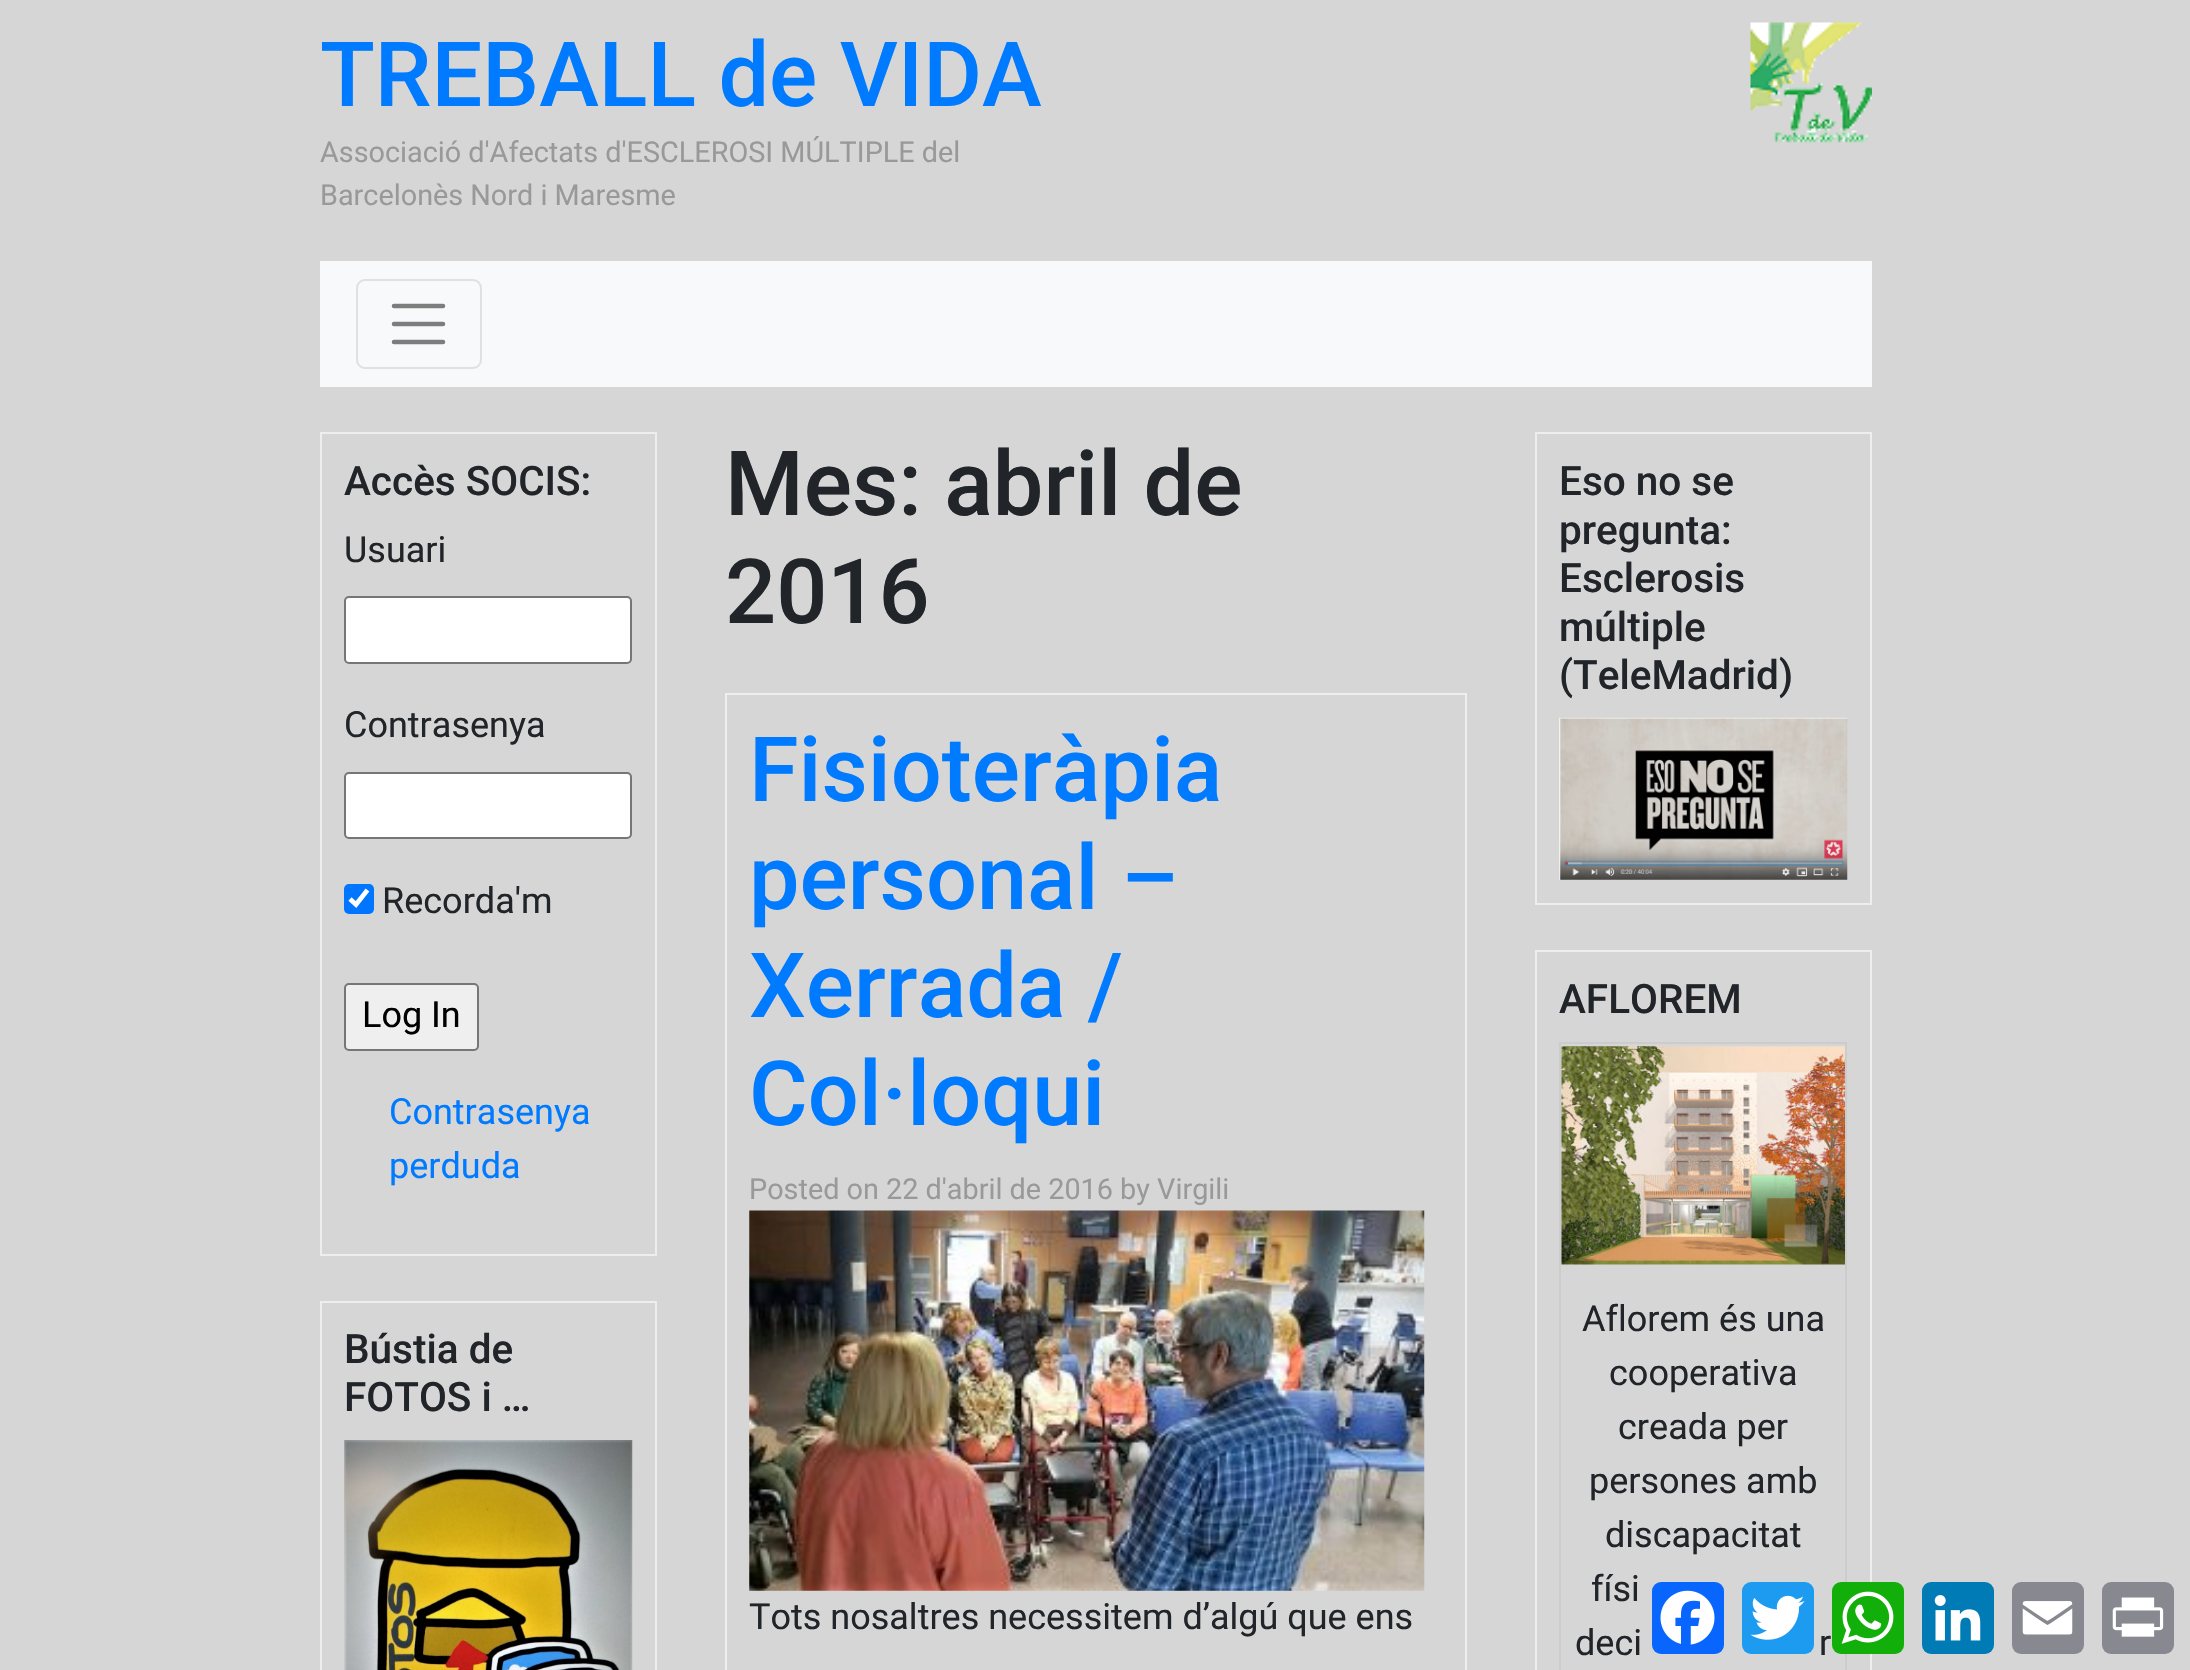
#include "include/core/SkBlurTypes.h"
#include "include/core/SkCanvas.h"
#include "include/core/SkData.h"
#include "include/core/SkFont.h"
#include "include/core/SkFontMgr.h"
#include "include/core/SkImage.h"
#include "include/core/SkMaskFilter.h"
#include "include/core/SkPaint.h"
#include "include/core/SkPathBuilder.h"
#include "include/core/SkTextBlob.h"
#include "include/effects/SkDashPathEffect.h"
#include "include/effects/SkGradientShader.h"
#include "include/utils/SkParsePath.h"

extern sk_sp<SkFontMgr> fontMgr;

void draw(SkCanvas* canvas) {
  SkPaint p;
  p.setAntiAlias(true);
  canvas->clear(SkColorSetRGB(214, 214, 214));
  canvas->drawImageRect(SkImages::DeferredFromEncodedData(SkData::MakeFromFileName("images/1.png")), SkRect::MakeLTRB(1750, 22, 1872, 143), SkSamplingOptions());
  p.setColor(SkColorSetRGB(248, 249, 250));
  canvas->drawRect(SkRect::MakeLTRB(320, 261, 1872, 387), p);
  p.setStyle(SkPaint::kStroke_Style);
  p.setStrokeWidth(2);
  p.setColor(SkColorSetRGB(223, 224, 225));
  canvas->drawRoundRect(SkRect::MakeLTRB(357, 280, 481, 368), 8, 8, p);
  p.setStrokeWidth(4.5f);
  p.setStrokeCap(SkPaint::kRound_Cap);
  p.setColor(SkColorSetRGB(124, 125, 125));
  canvas->drawPath(SkPathBuilder().moveTo(394, 306).lineTo(443, 306).moveTo(394, 324).lineTo(443, 324).moveTo(394, 342).lineTo(443, 342).detach(), p);
  p.setStrokeWidth(2);
  p.setStrokeCap(SkPaint::kButt_Cap);
  p.setColor(SkColorSetRGB(238, 238, 238));
  canvas->drawRect(SkRect::MakeLTRB(321, 433, 656, 1255), p);
  p.setStyle(SkPaint::kFill_Style);
  p.setColor(SK_ColorWHITE);
  canvas->drawRoundRect(SkRect::MakeLTRB(345, 597, 631, 663), 4, 4, p);
  p.setStyle(SkPaint::kStroke_Style);
  p.setColor(SkColorSetRGB(118, 118, 118));
  canvas->drawRoundRect(SkRect::MakeLTRB(345, 597, 631, 663), 4, 4, p);
  p.setStyle(SkPaint::kFill_Style);
  p.setColor(SK_ColorWHITE);
  canvas->drawRoundRect(SkRect::MakeLTRB(345, 773, 631, 838), 4, 4, p);
  p.setStyle(SkPaint::kStroke_Style);
  p.setColor(SkColorSetRGB(118, 118, 118));
  canvas->drawRoundRect(SkRect::MakeLTRB(345, 773, 631, 838), 4, 4, p);
  p.setStyle(SkPaint::kFill_Style);
  p.setColor(SkColorSetRGB(0, 117, 255));
  canvas->drawRoundRect(SkRect::MakeLTRB(344, 884, 374, 914), 5, 5, p);
  p.setStyle(SkPaint::kStroke_Style);
  p.setStrokeWidth(4.7f);
  p.setColor(SK_ColorWHITE);
  canvas->drawPath(SkPathBuilder().moveTo(350, 899).lineTo(356, 904.5f).lineTo(367.5f, 890).detach(), p);
  p.setStyle(SkPaint::kFill_Style);
  p.setColor(SkColorSetRGB(239, 239, 239));
  canvas->drawRoundRect(SkRect::MakeLTRB(345, 984, 478, 1050), 4, 4, p);
  p.setStyle(SkPaint::kStroke_Style);
  p.setStrokeWidth(2);
  p.setColor(SkColorSetRGB(118, 118, 118));
  canvas->drawRoundRect(SkRect::MakeLTRB(345, 984, 478, 1050), 4, 4, p);
  p.setColor(SkColorSetRGB(238, 238, 238));
  canvas->drawRect(SkRect::MakeLTRB(321, 1302, 656, 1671), p);
  canvas->drawImageRect(SkImages::DeferredFromEncodedData(SkData::MakeFromFileName("images/2.png")), SkRect::MakeLTRB(344, 1440, 633, 1670), SkSamplingOptions());
  canvas->drawRect(SkRect::MakeLTRB(726, 694, 1466, 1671), p);
  canvas->drawImageRect(SkImages::DeferredFromEncodedData(SkData::MakeFromFileName("images/3.png")), SkRect::MakeLTRB(749, 1210, 1425, 1591), SkSamplingOptions());
  canvas->drawRect(SkRect::MakeLTRB(1536, 433, 1871, 904), p);
  canvas->drawImageRect(SkImages::DeferredFromEncodedData(SkData::MakeFromFileName("images/4.png")), SkRect::MakeLTRB(1559, 717, 1848, 880), SkSamplingOptions());
  canvas->drawRect(SkRect::MakeLTRB(1536, 951, 1871, 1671), p);
  p.setColor(SkColorSetRGB(204, 204, 204));
  canvas->drawRect(SkRect::MakeLTRB(1560, 1043, 1846, 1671), p);
  canvas->drawImageRect(SkImages::DeferredFromEncodedData(SkData::MakeFromFileName("images/5.png")), SkRect::MakeLTRB(1561, 1046, 1845, 1265), SkSamplingOptions());
  p.setStyle(SkPaint::kFill_Style);
  p.setColor(SkColorSetRGB(8, 102, 255));
  canvas->drawRoundRect(SkRect::MakeLTRB(1652, 1582, 1724, 1654), 9, 9, p);
  canvas->drawImageRect(SkImages::DeferredFromEncodedData(SkData::MakeFromFileName("images/6.png")), SkRect::MakeLTRB(1660, 1590, 1715, 1645), SkSamplingOptions());
  p.setColor(SkColorSetRGB(29, 155, 240));
  canvas->drawRoundRect(SkRect::MakeLTRB(1742, 1582, 1814, 1654), 9, 9, p);
  canvas->drawImageRect(SkImages::DeferredFromEncodedData(SkData::MakeFromFileName("images/7.png")), SkRect::MakeLTRB(1750, 1595, 1805, 1640), SkSamplingOptions());
  p.setColor(SkColorSetRGB(18, 175, 10));
  canvas->drawRoundRect(SkRect::MakeLTRB(1832, 1582, 1904, 1654), 9, 9, p);
  canvas->drawImageRect(SkImages::DeferredFromEncodedData(SkData::MakeFromFileName("images/8.png")), SkRect::MakeLTRB(1841, 1591, 1894, 1644), SkSamplingOptions());
  p.setColor(SkColorSetRGB(0, 123, 181));
  canvas->drawRoundRect(SkRect::MakeLTRB(1922, 1582, 1994, 1654), 9, 9, p);
  canvas->drawImageRect(SkImages::DeferredFromEncodedData(SkData::MakeFromFileName("images/9.png")), SkRect::MakeLTRB(1934, 1595, 1981, 1641), SkSamplingOptions());
  p.setColor(SkColorSetRGB(136, 137, 144));
  canvas->drawRoundRect(SkRect::MakeLTRB(2012, 1582, 2084, 1654), 9, 9, p);
  canvas->drawImageRect(SkImages::DeferredFromEncodedData(SkData::MakeFromFileName("images/10.png")), SkRect::MakeLTRB(2022, 1601, 2073, 1635), SkSamplingOptions());
  canvas->drawRoundRect(SkRect::MakeLTRB(2102, 1582, 2174, 1654), 9, 9, p);
  canvas->drawImageRect(SkImages::DeferredFromEncodedData(SkData::MakeFromFileName("images/11.png")), SkRect::MakeLTRB(2112, 1597, 2164, 1637), SkSamplingOptions());
  SkFont font1(fontMgr->matchFamilyStyle("Roboto", SkFontStyle(500, SkFontStyle::kNormal_Width, SkFontStyle::kUpright_Slant)), 90);
  font1.setSubpixel(true);
  p.setColor(SkColorSetRGB(0, 123, 255));
  canvas->drawString("TREBALL de VIDA", 320, 106, font1, p);
  SkFont font2(fontMgr->matchFamilyStyle("Roboto", SkFontStyle::Normal()), 28.8f);
  font2.setSubpixel(true);
  p.setColor(SkColorSetRGB(153, 153, 153));
  canvas->drawString("Associació d'Afectats d'ESCLEROSI MÚLTIPLE del", 320, 162, font2, p);
  canvas->drawString("Barcelonès Nord i Maresme", 320, 205, font2, p);
  SkFont font3(fontMgr->matchFamilyStyle("Roboto", SkFontStyle(500, SkFontStyle::kNormal_Width, SkFontStyle::kUpright_Slant)), 40.5f);
  font3.setSubpixel(true);
  p.setColor(SkColorSetRGB(33, 37, 41));
  canvas->drawString("Accès SOCIS:", 344, 495, font3, p);
  SkFont font4(fontMgr->matchFamilyStyle("Roboto", SkFontStyle::Normal()), 36);
  font4.setSubpixel(true);
  canvas->drawString("Usuari", 344, 562, font4, p);
  canvas->drawString("Contrasenya", 344, 737, font4, p);
  canvas->drawString("Recorda'm", 382, 913, font4, p);
  p.setColor(SK_ColorBLACK);
  canvas->drawString("Log In", 362, 1027, font4, p);
  p.setColor(SkColorSetRGB(0, 123, 255));
  canvas->drawString("Contrasenya", 389, 1124, font4, p);
  canvas->drawString("perduda", 389, 1178, font4, p);
  p.setColor(SkColorSetRGB(33, 37, 41));
  canvas->drawString("Bústia de", 344, 1363, font3, p);
  canvas->drawString("FOTOS i …", 344, 1411, font3, p);
  canvas->drawString("Mes: abril de", 725, 515, font1, p);
  canvas->drawString("2016", 725, 623, font1, p);
  p.setColor(SkColorSetRGB(0, 123, 255));
  canvas->drawString("Fisioteràpia", 749, 801, font1, p);
  canvas->drawString("personal –", 749, 909, font1, p);
  canvas->drawString("Xerrada /", 749, 1017, font1, p);
  canvas->drawString("Col·loqui", 749, 1125, font1, p);
  p.setColor(SkColorSetRGB(153, 153, 153));
  canvas->drawString("Posted on 22 d'abril de 2016 by Virgili", 749, 1199, font2, p);
  p.setColor(SkColorSetRGB(33, 37, 41));
  canvas->drawString("Tots nosaltres necessitem d’algú que ens", 749, 1629, font4, p);
  canvas->drawString("Eso no se", 1559, 495, font3, p);
  canvas->drawString("pregunta:", 1559, 544, font3, p);
  canvas->drawString("Esclerosis", 1559, 592, font3, p);
  canvas->drawString("múltiple", 1559, 641, font3, p);
  canvas->drawString("(TeleMadrid)", 1559, 689, font3, p);
  canvas->drawString("AFLOREM", 1559, 1013, font3, p);
  canvas->drawString("Aflorem és una", 1582, 1331, font4, p);
  canvas->drawString("cooperativa", 1609, 1385, font4, p);
  canvas->drawString("creada per", 1618, 1439, font4, p);
  canvas->drawString("persones amb", 1589, 1493, font4, p);
  canvas->drawString("discapacitat", 1605, 1547, font4, p);
  canvas->drawString("físi", 1591, 1601, font4, p);
  canvas->drawString("deci", 1575, 1655, font4, p);
  canvas->drawString("r", 1819, 1655, font4, p);
}
